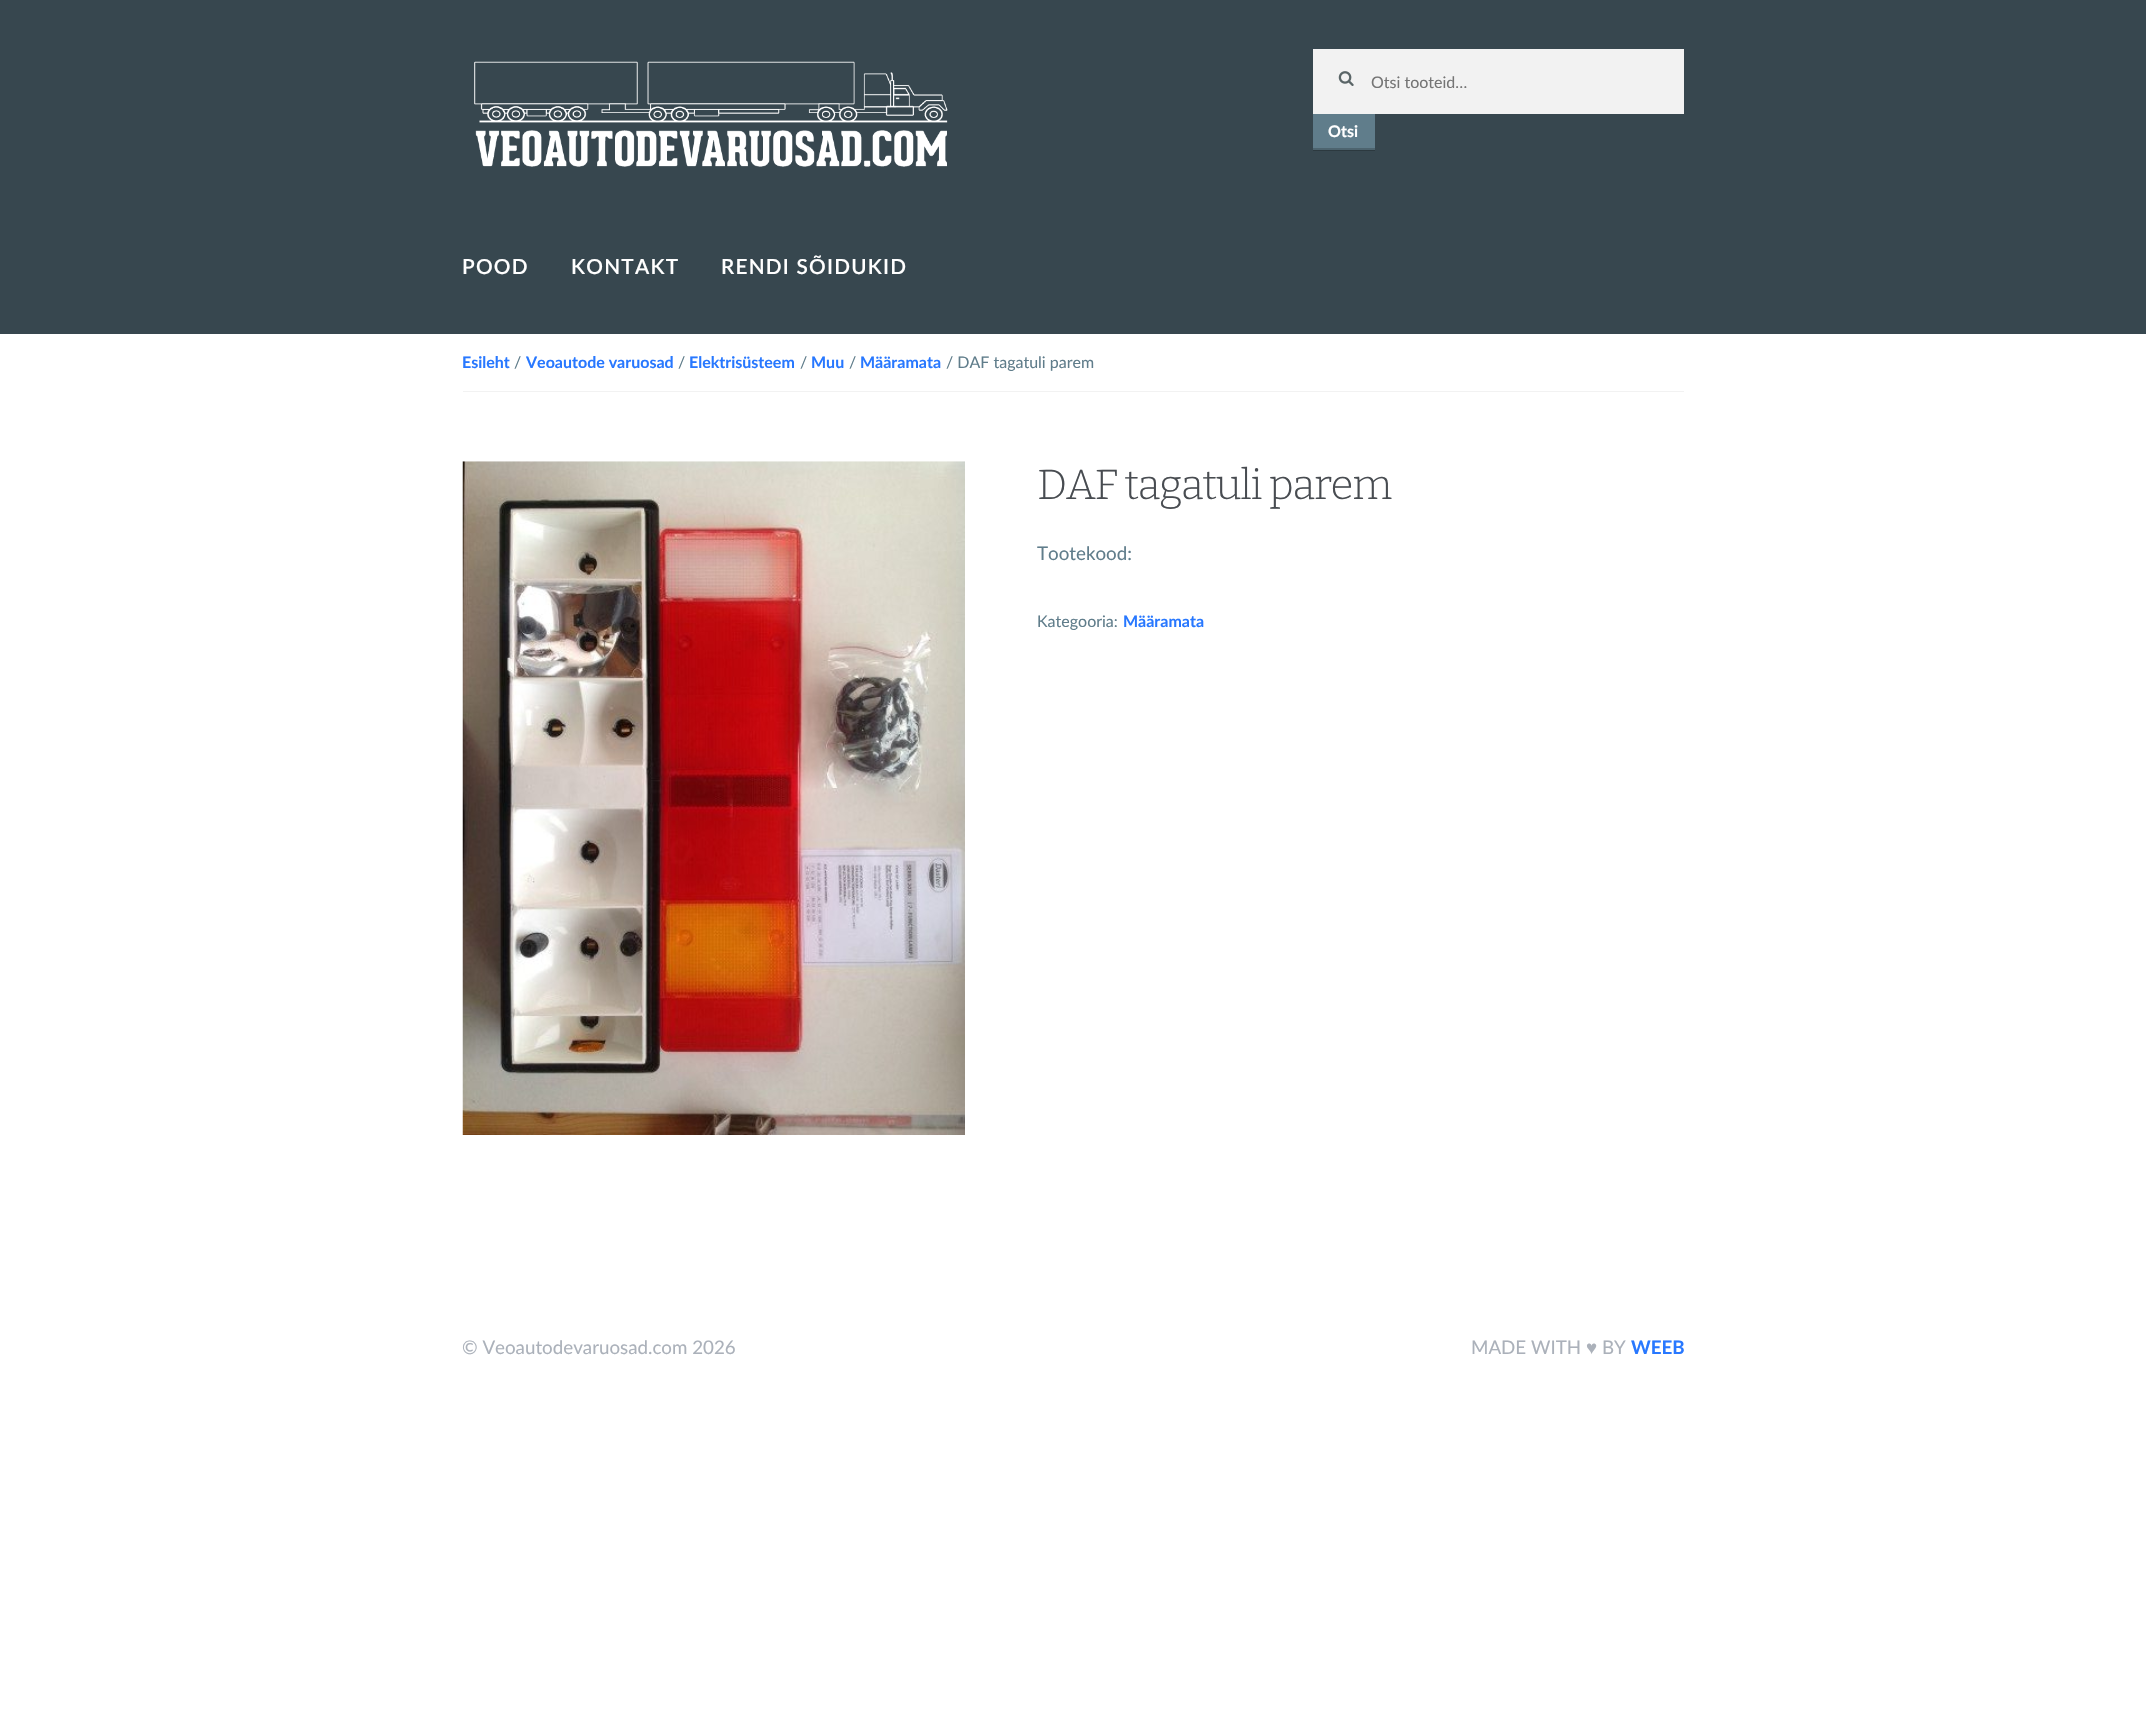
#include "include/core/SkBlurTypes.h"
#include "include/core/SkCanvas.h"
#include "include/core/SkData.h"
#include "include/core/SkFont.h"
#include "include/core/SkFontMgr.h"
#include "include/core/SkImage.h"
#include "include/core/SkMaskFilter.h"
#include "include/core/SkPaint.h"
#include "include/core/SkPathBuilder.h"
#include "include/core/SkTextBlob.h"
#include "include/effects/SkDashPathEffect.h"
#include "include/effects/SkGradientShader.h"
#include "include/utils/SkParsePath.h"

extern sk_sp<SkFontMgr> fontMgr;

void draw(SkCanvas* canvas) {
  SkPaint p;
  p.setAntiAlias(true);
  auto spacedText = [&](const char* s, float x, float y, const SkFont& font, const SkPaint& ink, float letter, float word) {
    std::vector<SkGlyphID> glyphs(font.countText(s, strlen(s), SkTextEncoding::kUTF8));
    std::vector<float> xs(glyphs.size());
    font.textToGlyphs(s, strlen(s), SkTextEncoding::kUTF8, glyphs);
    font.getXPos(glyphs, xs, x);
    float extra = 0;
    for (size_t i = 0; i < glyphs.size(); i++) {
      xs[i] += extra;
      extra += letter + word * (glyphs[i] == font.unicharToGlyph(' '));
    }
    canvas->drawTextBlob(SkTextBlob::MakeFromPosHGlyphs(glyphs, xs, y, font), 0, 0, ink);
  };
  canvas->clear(SK_ColorWHITE);
  p.setColor(SkColorSetRGB(55, 71, 79));
  canvas->drawRect(SkRect::MakeLTRB(0, 0, 2146, 334), p);
  canvas->drawImageRect(SkImages::DeferredFromEncodedData(SkData::MakeFromFileName("images/1.png")), SkRect::MakeLTRB(474, 61, 948, 167), SkSamplingOptions());
  p.setColor(SkColorSetRGB(242, 242, 242));
  canvas->drawRect(SkRect::MakeLTRB(1313, 49, 1684, 114), p);
  canvas->drawImageRect(SkImages::DeferredFromEncodedData(SkData::MakeFromFileName("images/2.png")), SkRect::MakeLTRB(1338, 71, 1354, 86), SkSamplingOptions());
  p.setColor(SkColorSetRGB(96, 125, 139));
  canvas->drawRect(SkRect::MakeLTRB(1313, 114, 1375, 150), p);
  p.setColor(SkColorSetARGB(51, 0, 0, 0));
  canvas->drawRect(SkRect::MakeLTRB(1313, 148, 1375, 151), p);
  p.setColor(SkColorSetRGB(242, 242, 242));
  canvas->drawRect(SkRect::MakeLTRB(463, 391, 1684, 392), p);
  canvas->drawImageRect(SkImages::DeferredFromEncodedData(SkData::MakeFromFileName("images/3.png")), SkRect::MakeLTRB(462, 461, 965, 1135), SkSamplingOptions());
  SkFont font1(fontMgr->matchFamilyStyle("Lato", SkFontStyle::Normal()), 16);
  font1.setSubpixel(true);
  p.setColor(SkColorSetRGB(117, 117, 117));
  canvas->drawString("Otsi tooteid…", 1371, 88, font1, p);
  SkFont font2(fontMgr->matchFamilyStyle("Lato", SkFontStyle::Bold()), 16);
  font2.setSubpixel(true);
  p.setColor(SK_ColorWHITE);
  canvas->drawString("Otsi", 1328, 137, font2, p);
  SkFont font3(fontMgr->matchFamilyStyle("Lato", SkFontStyle(600, SkFontStyle::kNormal_Width, SkFontStyle::kUpright_Slant)), 20.75f);
  font3.setSubpixel(true);
  spacedText("POOD", 462, 274, font3, p, 1.25f, 0);
  spacedText("KONTAKT", 571, 274, font3, p, 1.25f, 0);
  spacedText("RENDI SÕIDUKID", 721, 274, font3, p, 1.25f, 0);
  p.setColor(SkColorSetRGB(40, 120, 255));
  canvas->drawString("Esileht", 462, 368, font2, p);
  p.setColor(SkColorSetRGB(96, 125, 139));
  canvas->drawString("/", 514, 368, font1, p);
  p.setColor(SkColorSetRGB(40, 120, 255));
  canvas->drawString("Veoautode varuosad", 526, 368, font2, p);
  p.setColor(SkColorSetRGB(96, 125, 139));
  canvas->drawString("/", 678, 368, font1, p);
  p.setColor(SkColorSetRGB(40, 120, 255));
  canvas->drawString("Elektrisüsteem", 689, 368, font2, p);
  p.setColor(SkColorSetRGB(96, 125, 139));
  canvas->drawString("/", 800, 368, font1, p);
  p.setColor(SkColorSetRGB(40, 120, 255));
  canvas->drawString("Muu", 811, 368, font2, p);
  p.setColor(SkColorSetRGB(96, 125, 139));
  canvas->drawString("/", 849, 368, font1, p);
  p.setColor(SkColorSetRGB(40, 120, 255));
  canvas->drawString("Määramata", 860, 368, font2, p);
  p.setColor(SkColorSetRGB(96, 125, 139));
  canvas->drawString("/ DAF tagatuli parem", 946, 368, font1, p);
  SkFont font4(fontMgr->matchFamilyStyle("Bitter", SkFontStyle(300, SkFontStyle::kNormal_Width, SkFontStyle::kUpright_Slant)), 42);
  font4.setSubpixel(true);
  p.setColor(SkColorSetRGB(72, 76, 81));
  spacedText("DAF tagatuli parem", 1037, 499, font4, p, -1.25f, 0);
  SkFont font5(fontMgr->matchFamilyStyle("Lato", SkFontStyle::Normal()), 18.75f);
  font5.setSubpixel(true);
  p.setColor(SkColorSetRGB(96, 125, 139));
  canvas->drawString("Tootekood:", 1037, 560, font5, p);
  canvas->drawString("Kategooria:", 1037, 627, font1, p);
  p.setColor(SkColorSetRGB(40, 120, 255));
  canvas->drawString("Määramata", 1123, 627, font2, p);
  p.setColor(SkColorSetRGB(171, 177, 186));
  canvas->drawString("© Veoautodevaruosad.com 2026", 462, 1354, font5, p);
  canvas->drawString("MADE WITH", 1471, 1354, font5, p);
  SkFont font6(fontMgr->matchFamilyStyle("Liberation Sans", SkFontStyle::Normal()), 18.75f);
  font6.setSubpixel(true);
  canvas->drawString("♥", 1586, 1354, font6, p);
  canvas->drawString("BY", 1602, 1354, font5, p);
  SkFont font7(fontMgr->matchFamilyStyle("Lato", SkFontStyle::Bold()), 18.75f);
  font7.setSubpixel(true);
  p.setColor(SkColorSetRGB(40, 120, 255));
  canvas->drawString("WEEB", 1631, 1354, font7, p);
}
